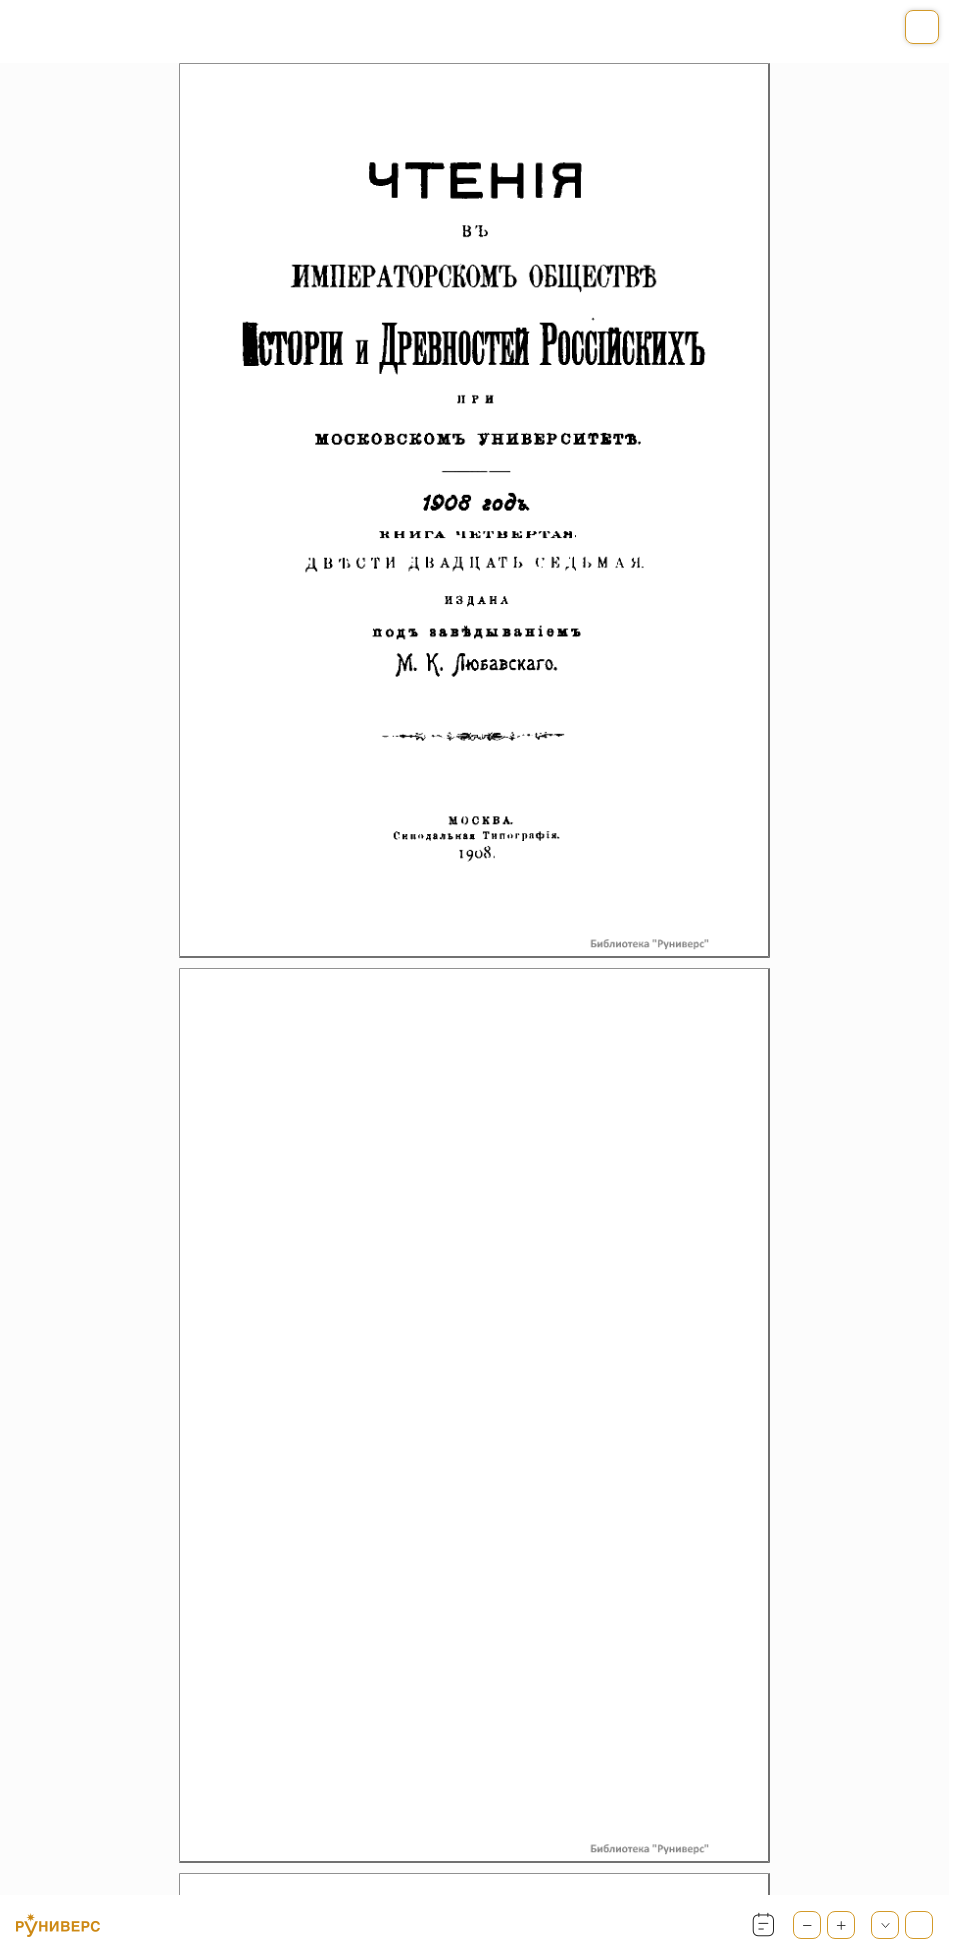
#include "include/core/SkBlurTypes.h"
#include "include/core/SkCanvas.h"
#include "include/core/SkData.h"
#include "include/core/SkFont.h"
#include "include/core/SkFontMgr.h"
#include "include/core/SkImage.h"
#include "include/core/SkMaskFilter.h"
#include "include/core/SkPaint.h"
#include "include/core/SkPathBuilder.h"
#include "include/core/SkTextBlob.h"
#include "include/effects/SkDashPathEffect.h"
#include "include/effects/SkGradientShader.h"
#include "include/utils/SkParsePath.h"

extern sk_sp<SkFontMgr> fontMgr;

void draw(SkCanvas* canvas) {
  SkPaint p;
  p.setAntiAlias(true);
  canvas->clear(SK_ColorWHITE);
  canvas->save();
  canvas->clipPath(SkPathBuilder(SkPathFillType::kEvenOdd).moveTo(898, 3).lineTo(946, 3).lineTo(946, 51).lineTo(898, 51).close().moveTo(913, 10).lineTo(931, 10).cubicTo(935.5f, 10, 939, 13.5f, 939, 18).lineTo(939, 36).cubicTo(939, 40.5f, 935.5f, 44, 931, 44).lineTo(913, 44).cubicTo(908.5f, 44, 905, 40.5f, 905, 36).lineTo(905, 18).cubicTo(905, 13.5f, 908.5f, 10, 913, 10).close().detach(), true);
  p.setColor(SkColorSetARGB(51, 0, 0, 0));
  p.setMaskFilter(SkMaskFilter::MakeBlur(kNormal_SkBlurStyle, 2));
  canvas->drawRoundRect(SkRect::MakeLTRB(905, 10, 939, 44), 8, 8, p);
  p.setMaskFilter(nullptr);
  canvas->restore();
  p.setColor(SkColorSetARGB(204, 255, 255, 255));
  canvas->drawRoundRect(SkRect::MakeLTRB(905.5f, 10.5f, 938.5f, 43.5f), 7.5f, 7.5f, p);
  p.setStyle(SkPaint::kStroke_Style);
  p.setStrokeWidth(1);
  p.setColor(SkColorSetRGB(211, 154, 41));
  canvas->drawRoundRect(SkRect::MakeLTRB(905.5f, 10.5f, 938.5f, 43.5f), 7.5f, 7.5f, p);
  p.setStyle(SkPaint::kFill_Style);
  p.setColor(SkColorSetRGB(252, 252, 252));
  canvas->drawRect(SkRect::MakeLTRB(0, 63, 949, 1895), p);
  p.setColor(SkColorSetRGB(144, 144, 144));
  canvas->drawPath(SkPathBuilder().moveTo(179, 1873).lineTo(770, 1873).lineTo(768, 1874).lineTo(180, 1874).close().detach(), p);
  p.setColor(SkColorSetRGB(113, 113, 113));
  canvas->drawPath(SkPathBuilder().moveTo(770, 1873).lineTo(770, 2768).lineTo(768, 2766).lineTo(768, 1874).close().detach(), p);
  p.setColor(SkColorSetRGB(144, 144, 144));
  canvas->drawPath(SkPathBuilder().moveTo(179, 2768).lineTo(179, 1873).lineTo(180, 1874).lineTo(180, 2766).close().detach(), p);
  p.setColor(SK_ColorWHITE);
  canvas->drawRect(SkRect::MakeLTRB(179, 1895, 770, 1955), p);
  canvas->drawImageRect(SkImages::DeferredFromEncodedData(SkData::MakeFromFileName("images/1.png")), SkRect::MakeLTRB(16, 1913, 100, 1937), SkSamplingOptions());
  canvas->drawImageRect(SkImages::DeferredFromEncodedData(SkData::MakeFromFileName("images/2.png")), SkRect::MakeLTRB(752, 1912, 774, 1937), SkSamplingOptions());
  p.setStyle(SkPaint::kStroke_Style);
  p.setColor(SkColorSetRGB(211, 154, 41));
  canvas->drawRoundRect(SkRect::MakeLTRB(793.5f, 1911.5f, 820.5f, 1938.5f), 7.5f, 7.5f, p);
  p.setStrokeWidth(0.9f);
  p.setStrokeCap(SkPaint::kRound_Cap);
  p.setStrokeJoin(SkPaint::kRound_Join);
  p.setColor(SkColorSetRGB(37, 37, 37));
  canvas->drawPath(SkPathBuilder().moveTo(811, 1925.5f).lineTo(803.5f, 1925.5f).detach(), p);
  p.setStrokeWidth(1);
  p.setStrokeCap(SkPaint::kButt_Cap);
  p.setStrokeJoin(SkPaint::kMiter_Join);
  p.setColor(SkColorSetRGB(211, 154, 41));
  canvas->drawRoundRect(SkRect::MakeLTRB(827.5f, 1911.5f, 854.5f, 1938.5f), 7.5f, 7.5f, p);
  canvas->drawImageRect(SkImages::DeferredFromEncodedData(SkData::MakeFromFileName("images/3.png")), SkRect::MakeLTRB(836, 1921, 846, 1930), SkSamplingOptions());
  canvas->drawRoundRect(SkRect::MakeLTRB(871.5f, 1911.5f, 898.5f, 1938.5f), 7.5f, 7.5f, p);
  p.setStrokeWidth(0.9f);
  p.setStrokeCap(SkPaint::kRound_Cap);
  p.setColor(SkColorSetRGB(37, 37, 37));
  canvas->drawPath(SkPathBuilder().moveTo(882, 1923.5f).lineTo(885.5f, 1927.5f).lineTo(889, 1923.5f).detach(), p);
  p.setStrokeWidth(1);
  p.setStrokeCap(SkPaint::kButt_Cap);
  p.setColor(SkColorSetRGB(211, 154, 41));
  canvas->drawRoundRect(SkRect::MakeLTRB(905.5f, 1911.5f, 932.5f, 1938.5f), 7.5f, 7.5f, p);
  p.setStyle(SkPaint::kFill_Style);
  p.setColor(SK_ColorWHITE);
  canvas->drawRect(SkRect::MakeLTRB(180, 64, 768, 956), p);
  p.setColor(SkColorSetRGB(144, 144, 144));
  canvas->drawPath(SkPathBuilder().moveTo(179, 63).lineTo(770, 63).lineTo(768, 64).lineTo(180, 64).close().detach(), p);
  p.setColor(SkColorSetRGB(113, 113, 113));
  canvas->drawPath(SkPathBuilder().moveTo(770, 63).lineTo(770, 958).lineTo(768, 956).lineTo(768, 64).close().detach(), p);
  canvas->drawPath(SkPathBuilder().moveTo(770, 958).lineTo(179, 958).lineTo(180, 956).lineTo(768, 956).close().detach(), p);
  p.setColor(SkColorSetRGB(144, 144, 144));
  canvas->drawPath(SkPathBuilder().moveTo(179, 958).lineTo(179, 63).lineTo(180, 64).lineTo(180, 956).close().detach(), p);
  canvas->drawImageRect(SkImages::DeferredFromEncodedData(SkData::MakeFromFileName("images/4.png")), SkRect::MakeLTRB(242, 162, 709, 950), SkSamplingOptions());
  p.setColor(SK_ColorWHITE);
  canvas->drawRect(SkRect::MakeLTRB(180, 969, 768, 1861), p);
  p.setColor(SkColorSetRGB(144, 144, 144));
  canvas->drawPath(SkPathBuilder().moveTo(179, 968).lineTo(770, 968).lineTo(768, 969).lineTo(180, 969).close().detach(), p);
  p.setColor(SkColorSetRGB(113, 113, 113));
  canvas->drawPath(SkPathBuilder().moveTo(770, 968).lineTo(770, 1863).lineTo(768, 1861).lineTo(768, 969).close().detach(), p);
  canvas->drawPath(SkPathBuilder().moveTo(770, 1863).lineTo(179, 1863).lineTo(180, 1861).lineTo(768, 1861).close().detach(), p);
  p.setColor(SkColorSetRGB(144, 144, 144));
  canvas->drawPath(SkPathBuilder().moveTo(179, 1863).lineTo(179, 968).lineTo(180, 969).lineTo(180, 1861).close().detach(), p);
  canvas->drawImageRect(SkImages::DeferredFromEncodedData(SkData::MakeFromFileName("images/5.png")), SkRect::MakeLTRB(590, 1844, 709, 1855), SkSamplingOptions());
  p.setColor(SK_ColorWHITE);
  canvas->drawRect(SkRect::MakeLTRB(180, 1874, 768, 1895), p);
}
